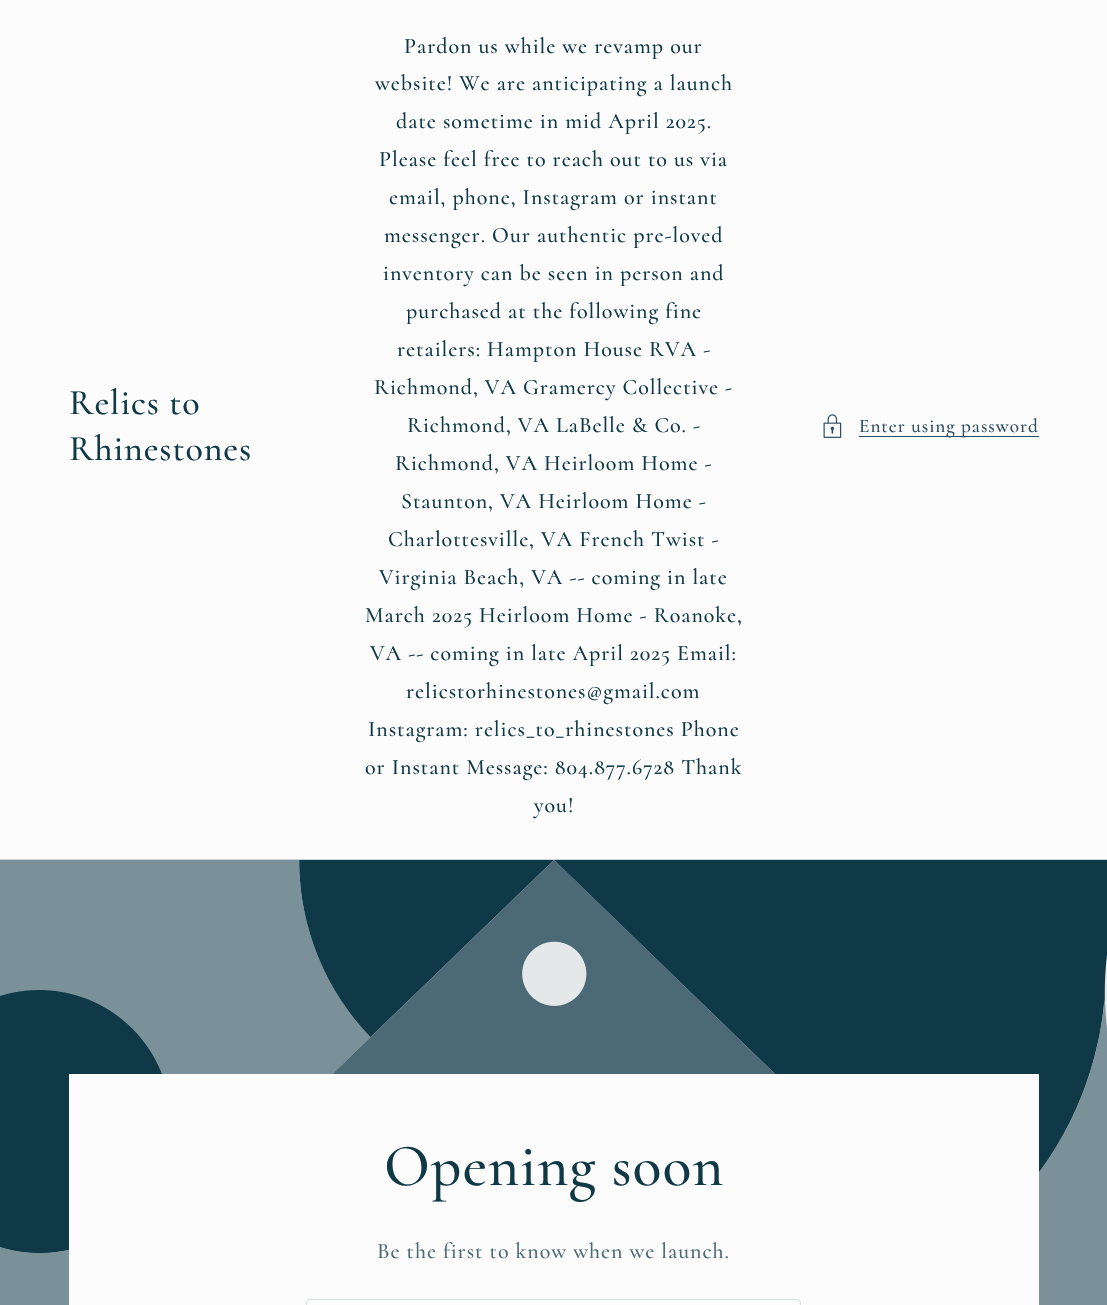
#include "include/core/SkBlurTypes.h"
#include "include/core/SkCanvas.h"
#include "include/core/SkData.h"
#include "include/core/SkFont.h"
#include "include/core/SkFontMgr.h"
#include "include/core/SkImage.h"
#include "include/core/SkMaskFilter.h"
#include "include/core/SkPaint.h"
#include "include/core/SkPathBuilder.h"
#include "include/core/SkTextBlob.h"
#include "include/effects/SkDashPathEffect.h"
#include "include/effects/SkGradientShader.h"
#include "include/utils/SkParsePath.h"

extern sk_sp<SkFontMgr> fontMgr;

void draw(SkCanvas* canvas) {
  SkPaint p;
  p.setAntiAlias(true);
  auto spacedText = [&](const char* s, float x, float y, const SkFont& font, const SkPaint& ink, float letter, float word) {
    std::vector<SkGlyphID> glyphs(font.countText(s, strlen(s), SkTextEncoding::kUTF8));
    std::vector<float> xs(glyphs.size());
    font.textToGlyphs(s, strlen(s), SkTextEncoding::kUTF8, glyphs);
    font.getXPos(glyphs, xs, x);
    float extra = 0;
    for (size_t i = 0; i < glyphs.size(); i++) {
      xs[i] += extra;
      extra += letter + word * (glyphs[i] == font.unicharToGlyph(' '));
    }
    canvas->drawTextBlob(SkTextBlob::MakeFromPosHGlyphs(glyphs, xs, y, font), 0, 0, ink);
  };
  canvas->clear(SkColorSetRGB(252, 252, 252));
  canvas->drawImageRect(SkImages::DeferredFromEncodedData(SkData::MakeFromFileName("images/1.png")), SkRect::MakeLTRB(823, 414, 842, 438), SkSamplingOptions());
  p.setColor(SkColorSetRGB(42, 75, 97));
  canvas->drawRect(SkRect::MakeLTRB(859, 436, 1039, 437), p);
  p.setColor(SkColorSetRGB(205, 213, 216));
  canvas->drawRect(SkRect::MakeLTRB(0, 859, 1107, 860), p);
  canvas->drawImageRect(SkImages::DeferredFromEncodedData(SkData::MakeFromFileName("images/2.png")), SkRect::MakeLTRB(0, 860, 1107, 1305), SkSamplingOptions());
  p.setColor(SkColorSetRGB(252, 252, 252));
  canvas->drawRect(SkRect::MakeLTRB(69, 1074, 1039, 1305), p);
  p.setStyle(SkPaint::kStroke_Style);
  p.setStrokeWidth(1);
  p.setColor(SkColorSetRGB(217, 223, 225));
  canvas->drawRoundRect(SkRect::MakeLTRB(306.5f, 1299.5f, 800.5f, 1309.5f), 3.5f, 3.5f, p);
  SkFont font1(fontMgr->matchFamilyStyle("Cormorant", SkFontStyle(500, SkFontStyle::kNormal_Width, SkFontStyle::kUpright_Slant)), 36);
  font1.setSubpixel(true);
  p.setStyle(SkPaint::kFill_Style);
  p.setColor(SkColorSetRGB(16, 57, 72));
  spacedText("Relics to", 69, 414, font1, p, 0.9f, 0);
  spacedText("Rhinestones", 69, 460, font1, p, 0.9f, 0);
  SkFont font2(fontMgr->matchFamilyStyle("Cormorant", SkFontStyle(500, SkFontStyle::kNormal_Width, SkFontStyle::kUpright_Slant)), 22);
  font2.setSubpixel(true);
  spacedText("Pardon us while we revamp our", 404, 53, font2, p, 0.95f, 0);
  spacedText("website! We are anticipating a launch", 375, 90, font2, p, 0.95f, 0);
  spacedText("date sometime in mid April 2025.", 396, 128, font2, p, 0.95f, 0);
  spacedText("Please feel free to reach out to us via", 379, 166, font2, p, 0.95f, 0);
  spacedText("email, phone, Instagram or instant", 389, 204, font2, p, 0.95f, 0);
  spacedText("messenger. Our authentic pre-loved", 384, 242, font2, p, 0.95f, 0);
  spacedText("inventory can be seen in person and", 383, 280, font2, p, 0.95f, 0);
  spacedText("purchased at the following fine", 406, 318, font2, p, 0.95f, 0);
  spacedText("retailers: Hampton House RVA -", 397, 356, font2, p, 0.95f, 0);
  spacedText("Richmond, VA Gramercy Collective -", 374, 394, font2, p, 0.95f, 0);
  spacedText("Richmond, VA LaBelle & Co. -", 407, 432, font2, p, 0.95f, 0);
  spacedText("Richmond, VA Heirloom Home -", 395, 470, font2, p, 0.95f, 0);
  spacedText("Staunton, VA Heirloom Home -", 401, 508, font2, p, 0.95f, 0);
  spacedText("Charlottesville, VA French Twist -", 388, 546, font2, p, 0.95f, 0);
  spacedText("Virginia Beach, VA -- coming in late", 379, 584, font2, p, 0.95f, 0);
  spacedText("March 2025 Heirloom Home - Roanoke,", 365, 622, font2, p, 0.95f, 0);
  spacedText("VA -- coming in late April 2025 Email:", 370, 660, font2, p, 0.95f, 0);
  spacedText("relicstorhinestones@gmail.com", 406, 698, font2, p, 0.95f, 0);
  spacedText("Instagram: relics_to_rhinestones Phone", 368, 736, font2, p, 0.95f, 0);
  spacedText("or Instant Message: 804.877.6728 Thank", 365, 774, font2, p, 0.95f, 0);
  spacedText("you!", 534, 812, font2, p, 0.95f, 0);
  SkFont font3(fontMgr->matchFamilyStyle("Cormorant", SkFontStyle(500, SkFontStyle::kNormal_Width, SkFontStyle::kUpright_Slant)), 19.25f);
  font3.setSubpixel(true);
  p.setColor(SkColorSetRGB(42, 75, 97));
  spacedText("Enter using password", 859, 432, font3, p, 0.95f, 0);
  SkFont font4(fontMgr->matchFamilyStyle("Cormorant", SkFontStyle(500, SkFontStyle::kNormal_Width, SkFontStyle::kUpright_Slant)), 60);
  font4.setSubpixel(true);
  p.setColor(SkColorSetRGB(16, 57, 72));
  spacedText("Opening soon", 384, 1185, font4, p, 0.9f, 0);
  p.setColor(SkColorSetRGB(75, 106, 117));
  spacedText("Be the first to know when we launch.", 377, 1258, font2, p, 0.95f, 0);
}
